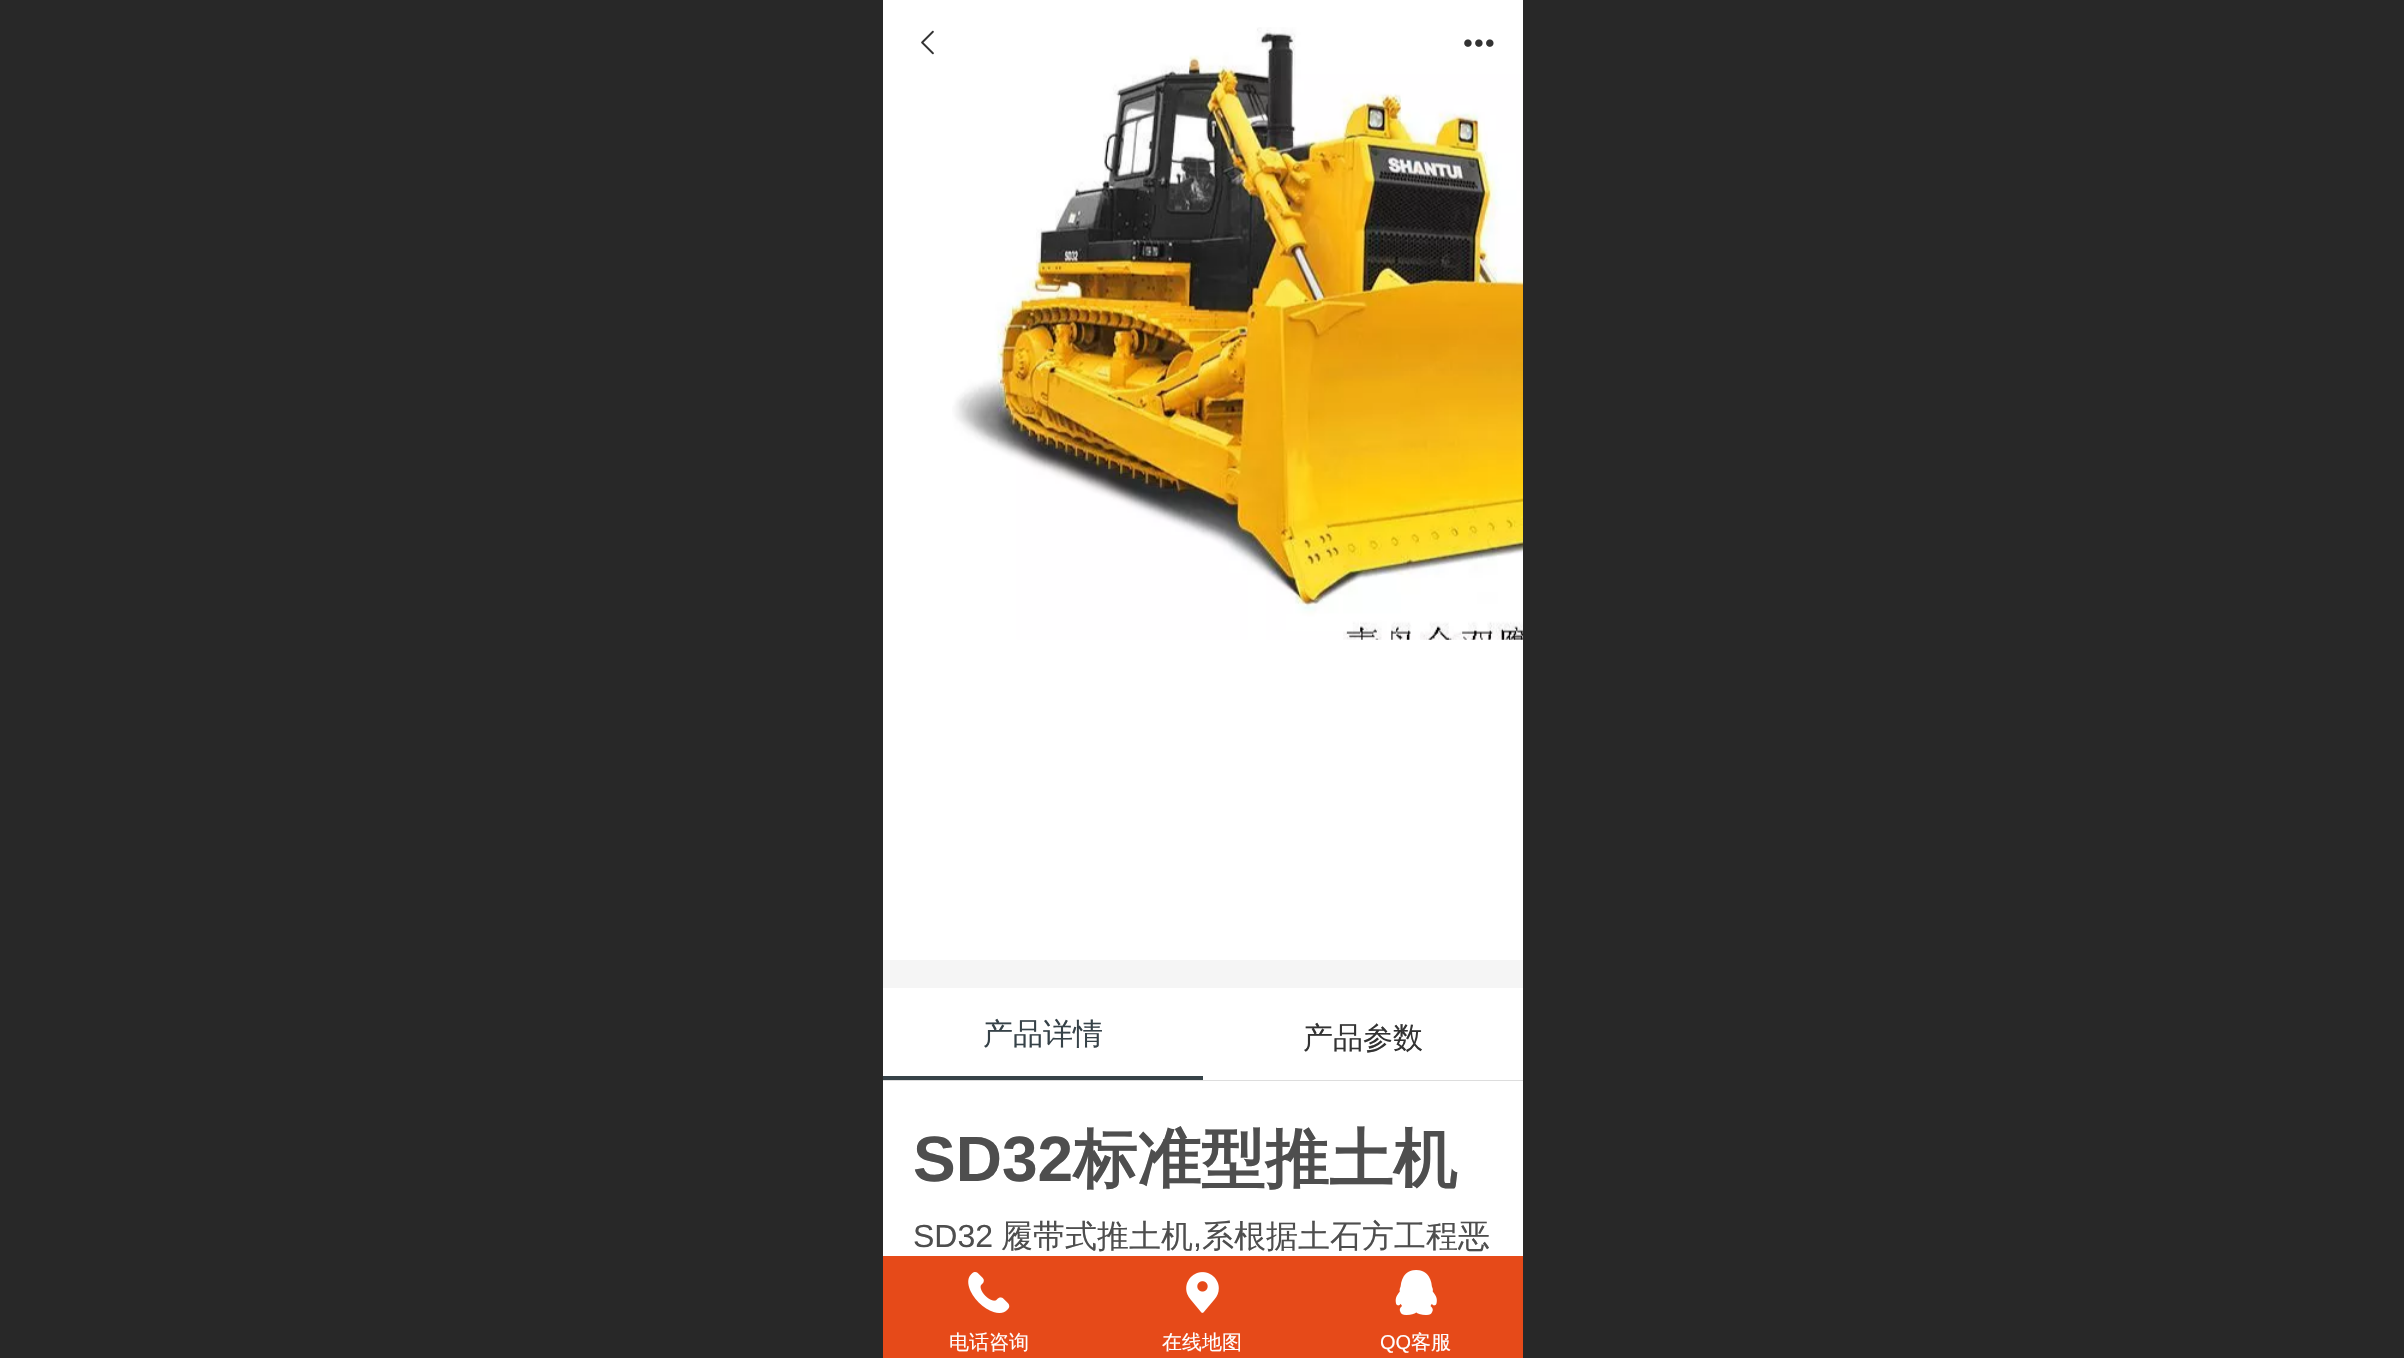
#include "include/core/SkBlurTypes.h"
#include "include/core/SkCanvas.h"
#include "include/core/SkData.h"
#include "include/core/SkFont.h"
#include "include/core/SkFontMgr.h"
#include "include/core/SkImage.h"
#include "include/core/SkMaskFilter.h"
#include "include/core/SkPaint.h"
#include "include/core/SkPathBuilder.h"
#include "include/core/SkTextBlob.h"
#include "include/effects/SkDashPathEffect.h"
#include "include/effects/SkGradientShader.h"
#include "include/utils/SkParsePath.h"

extern sk_sp<SkFontMgr> fontMgr;

void draw(SkCanvas* canvas) {
  SkPaint p;
  p.setAntiAlias(true);
  canvas->clear(SK_ColorWHITE);
  p.setColor(SkColorSetRGB(40, 40, 40));
  canvas->drawRect(SkRect::MakeLTRB(0, 0, 883, 1358), p);
  canvas->drawImageRect(SkImages::DeferredFromEncodedData(SkData::MakeFromFileName("images/1.png")), SkRect::MakeLTRB(921, 30, 934, 55), SkSamplingOptions());
  canvas->drawImageRect(SkImages::DeferredFromEncodedData(SkData::MakeFromFileName("images/3.png")), SkRect::MakeLTRB(952, 27, 1523, 640), SkSamplingOptions());
  canvas->drawImageRect(SkImages::DeferredFromEncodedData(SkData::MakeFromFileName("images/2.png")), SkRect::MakeLTRB(1464, 39, 1494, 47), SkSamplingOptions());
  p.setColor(SkColorSetRGB(245, 245, 245));
  canvas->drawRect(SkRect::MakeLTRB(883, 960, 1523, 988), p);
  p.setColor(SkColorSetRGB(221, 221, 221));
  canvas->drawRect(SkRect::MakeLTRB(883, 1080, 1523, 1081), p);
  p.setColor(SkColorSetRGB(54, 66, 72));
  canvas->drawRect(SkRect::MakeLTRB(883, 1076, 1203, 1080), p);
  p.setColor(SkColorSetRGB(230, 74, 25));
  canvas->drawRect(SkRect::MakeLTRB(883, 1256, 1523, 1358), p);
  canvas->drawImageRect(SkImages::DeferredFromEncodedData(SkData::MakeFromFileName("images/4.png")), SkRect::MakeLTRB(968, 1272, 1010, 1313), SkSamplingOptions());
  canvas->drawImageRect(SkImages::DeferredFromEncodedData(SkData::MakeFromFileName("images/5.png")), SkRect::MakeLTRB(1186, 1272, 1219, 1313), SkSamplingOptions());
  canvas->drawImageRect(SkImages::DeferredFromEncodedData(SkData::MakeFromFileName("images/6.png")), SkRect::MakeLTRB(1395, 1270, 1437, 1315), SkSamplingOptions());
  p.setColor(SkColorSetRGB(40, 40, 40));
  canvas->drawRect(SkRect::MakeLTRB(1523, 0, 2404, 1358), p);
  SkFont font1(fontMgr->matchFamilyStyle("WenQuanYi Zen Hei", SkFontStyle(500, SkFontStyle::kNormal_Width, SkFontStyle::kUpright_Slant)), 30);
  font1.setSubpixel(true);
  p.setColor(SkColorSetRGB(54, 66, 72));
  canvas->drawString("产品详情", 983, 1044, font1, p);
  p.setColor(SkColorSetRGB(51, 51, 51));
  canvas->drawString("产品参数", 1303, 1048, font1, p);
  SkFont font2(fontMgr->matchFamilyStyle("Liberation Sans", SkFontStyle::Bold()), 64);
  font2.setSubpixel(true);
  p.setColor(SkColorSetRGB(78, 78, 78));
  canvas->drawString("SD32", 913, 1181, font2, p);
  SkFont font3(fontMgr->matchFamilyStyle("WenQuanYi Zen Hei", SkFontStyle::Bold()), 64);
  font3.setSubpixel(true);
  canvas->drawString("标准型推土机", 1073, 1181, font3, p);
  SkFont font4(fontMgr->matchFamilyStyle("Liberation Sans", SkFontStyle::Normal()), 32);
  font4.setSubpixel(true);
  canvas->drawString("SD32", 913, 1247, font4, p);
  SkFont font5(fontMgr->matchFamilyStyle("WenQuanYi Zen Hei", SkFontStyle(500, SkFontStyle::kNormal_Width, SkFontStyle::kUpright_Slant)), 32);
  font5.setSubpixel(true);
  canvas->drawString("履带式推土机", 1001, 1247, font5, p);
  canvas->drawString(",", 1193, 1247, font4, p);
  canvas->drawString("系根据土石方工程恶", 1202, 1247, font5, p);
  SkFont font6(fontMgr->matchFamilyStyle("WenQuanYi Zen Hei", SkFontStyle(500, SkFontStyle::kNormal_Width, SkFontStyle::kUpright_Slant)), 20);
  font6.setSubpixel(true);
  p.setColor(SK_ColorWHITE);
  canvas->drawString("电话咨询", 949, 1349, font6, p);
  canvas->drawString("在线地图", 1162, 1349, font6, p);
  SkFont font7(fontMgr->matchFamilyStyle("Liberation Sans", SkFontStyle::Normal()), 20);
  font7.setSubpixel(true);
  canvas->drawString("QQ", 1380, 1349, font7, p);
  canvas->drawString("客服", 1411, 1349, font6, p);
}
